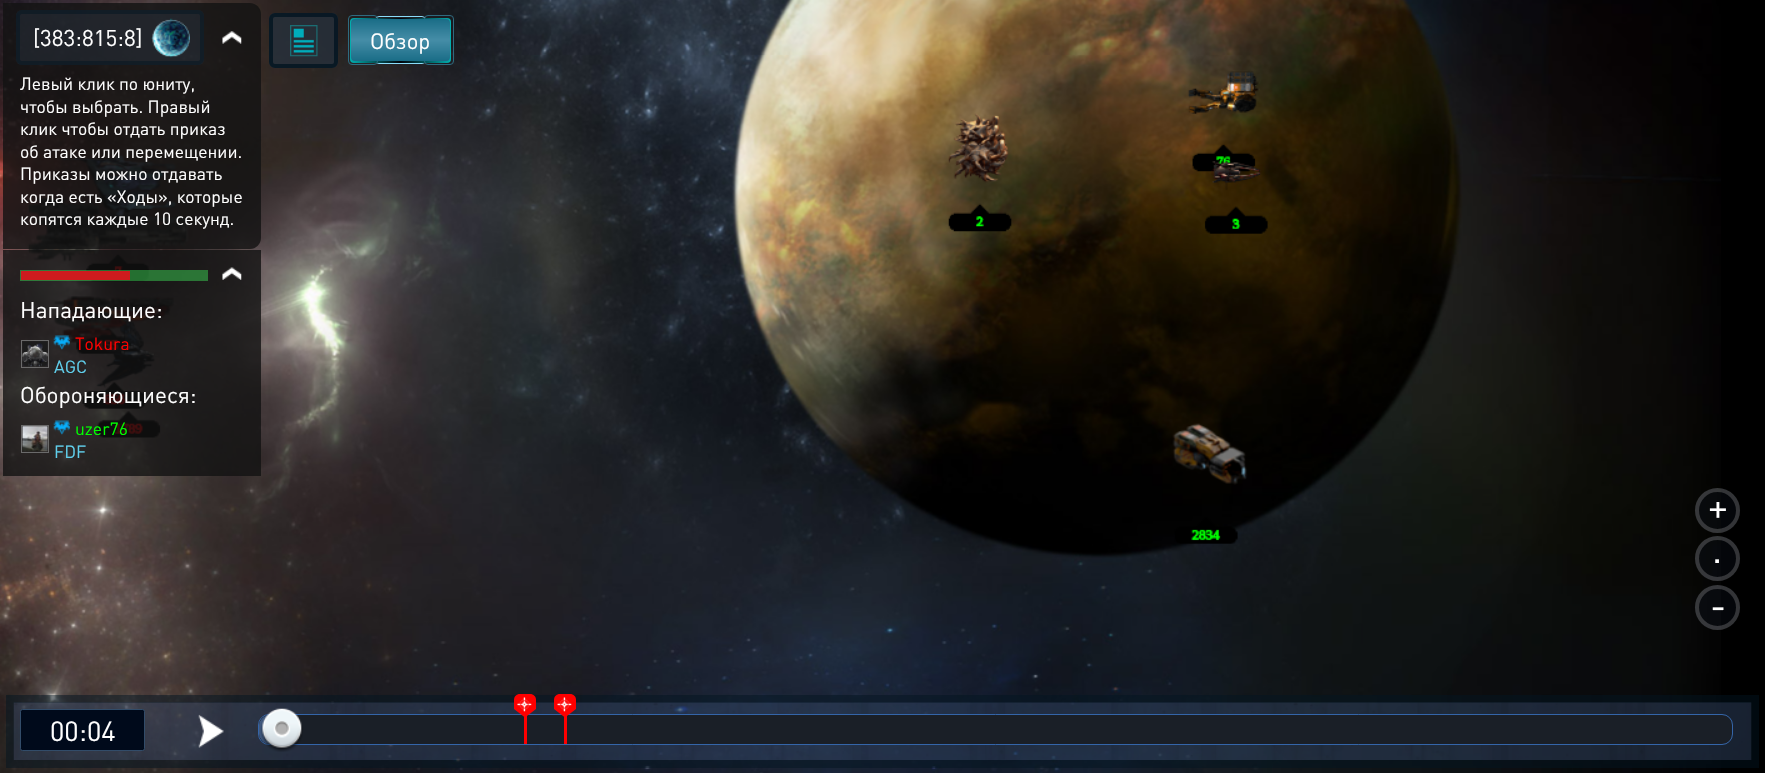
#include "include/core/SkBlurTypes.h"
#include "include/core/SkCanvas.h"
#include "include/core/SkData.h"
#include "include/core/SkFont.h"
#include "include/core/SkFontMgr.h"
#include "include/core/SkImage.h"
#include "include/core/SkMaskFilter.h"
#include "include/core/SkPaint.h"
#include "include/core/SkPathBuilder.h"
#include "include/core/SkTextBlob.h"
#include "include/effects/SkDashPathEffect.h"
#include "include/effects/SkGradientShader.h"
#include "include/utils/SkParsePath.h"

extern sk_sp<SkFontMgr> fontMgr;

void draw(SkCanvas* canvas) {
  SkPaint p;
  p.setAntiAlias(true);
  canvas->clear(SK_ColorBLACK);
  canvas->drawImageRect(SkImages::DeferredFromEncodedData(SkData::MakeFromFileName("images/1.png")), SkRect::MakeLTRB(0, 0, 1721, 773), SkSamplingOptions());
  p.setColor(SkColorSetARGB(204, 17, 17, 17));
  canvas->drawPath(SkPathBuilder().moveTo(3, 3).lineTo(250, 3).cubicTo(256, 3, 261, 8, 261, 14).lineTo(261, 238).cubicTo(261, 244, 256, 249, 250, 249).lineTo(3, 249).close().detach(), p);
  p.setColor(SkColorSetARGB(128, 37, 47, 59));
  canvas->drawRoundRect(SkRect::MakeLTRB(16, 10, 204, 65), 6, 6, p);
  p.setStyle(SkPaint::kStroke_Style);
  p.setStrokeWidth(4);
  p.setColor(SkColorSetARGB(128, 1, 19, 31));
  canvas->drawRoundRect(SkRect::MakeLTRB(18, 12, 202, 63), 4, 4, p);
  canvas->drawImageRect(SkImages::DeferredFromEncodedData(SkData::MakeFromFileName("images/2.png")), SkRect::MakeLTRB(151, 18, 190, 58), SkSamplingOptions());
  canvas->drawImageRect(SkImages::DeferredFromEncodedData(SkData::MakeFromFileName("images/3.png")), SkRect::MakeLTRB(152, 19, 190, 57), SkSamplingOptions());
  canvas->drawImageRect(SkImages::DeferredFromEncodedData(SkData::MakeFromFileName("images/4.png")), SkRect::MakeLTRB(222, 31, 242, 44), SkSamplingOptions());
  p.setStyle(SkPaint::kFill_Style);
  p.setColor(SkColorSetARGB(204, 17, 17, 17));
  canvas->drawRect(SkRect::MakeLTRB(3, 250, 261, 476), p);
  p.setColor(SkColorSetARGB(128, 58, 207, 81));
  canvas->drawRect(SkRect::MakeLTRB(20, 270, 208, 281), p);
  p.setColor(SkColorSetRGB(206, 27, 30));
  canvas->drawRect(SkRect::MakeLTRB(21, 271, 130, 280), p);
  canvas->drawImageRect(SkImages::DeferredFromEncodedData(SkData::MakeFromFileName("images/5.png")), SkRect::MakeLTRB(222, 267, 242, 280), SkSamplingOptions());
  p.setStyle(SkPaint::kStroke_Style);
  p.setStrokeWidth(1);
  p.setColor(SkColorSetARGB(237, 111, 111, 111));
  canvas->drawRect(SkRect::MakeLTRB(21.5f, 340.5f, 48.5f, 367.5f), p);
  canvas->drawImageRect(SkImages::DeferredFromEncodedData(SkData::MakeFromFileName("images/6.png")), SkRect::MakeLTRB(22, 341, 48, 367), SkSamplingOptions());
  canvas->drawImageRect(SkImages::DeferredFromEncodedData(SkData::MakeFromFileName("images/7.png")), SkRect::MakeLTRB(53, 335, 70, 350), SkSamplingOptions());
  canvas->drawRect(SkRect::MakeLTRB(21.5f, 425.5f, 48.5f, 452.5f), p);
  canvas->drawImageRect(SkImages::DeferredFromEncodedData(SkData::MakeFromFileName("images/8.png")), SkRect::MakeLTRB(22, 426, 48, 452), SkSamplingOptions());
  canvas->drawImageRect(SkImages::DeferredFromEncodedData(SkData::MakeFromFileName("images/9.png")), SkRect::MakeLTRB(53, 420, 70, 435), SkSamplingOptions());
  p.setStyle(SkPaint::kFill_Style);
  p.setColor(SkColorSetARGB(204, 37, 47, 59));
  canvas->drawRoundRect(SkRect::MakeLTRB(269, 13, 338, 68), 6, 6, p);
  canvas->drawImageRect(SkImages::DeferredFromEncodedData(SkData::MakeFromFileName("images/10.png")), SkRect::MakeLTRB(290, 25, 318, 57), SkSamplingOptions());
  p.setStyle(SkPaint::kStroke_Style);
  p.setStrokeWidth(4);
  p.setColor(SkColorSetARGB(204, 1, 19, 31));
  canvas->drawRoundRect(SkRect::MakeLTRB(271, 15, 336, 66), 4, 4, p);
  p.setStrokeWidth(1);
  p.setColor(SkColorSetRGB(137, 220, 250));
  canvas->drawRoundRect(SkRect::MakeLTRB(375.5f, 16.5f, 425.5f, 63.5f), 3.5f, 3.5f, p);
  p.setStyle(SkPaint::kFill_Style);
  {
    const SkColor colors[] = {SkColorSetRGB(2, 175, 175), SkColorSetRGB(0, 3, 10), SkColorSetRGB(2, 175, 175)};
    const float stops[] = {0, 0.5f, 1};
    const SkPoint ends[] = {{350, 40}, {451, 40}};
    p.setShader(SkGradientShader::MakeLinear(ends, colors, stops, 3, SkTileMode::kClamp));
    p.setAlpha(255);
  }
  canvas->drawRoundRect(SkRect::MakeLTRB(350, 18, 451, 63), 4, 4, p);
  p.setStyle(SkPaint::kStroke_Style);
  p.setShader(nullptr);
  p.setColor(SkColorSetRGB(46, 107, 128));
  canvas->drawRoundRect(SkRect::MakeLTRB(348.5f, 15.5f, 377.5f, 64.5f), 3.5f, 3.5f, p);
  canvas->drawRoundRect(SkRect::MakeLTRB(424.5f, 15.5f, 453.5f, 64.5f), 3.5f, 3.5f, p);
  p.setStyle(SkPaint::kFill_Style);
  {
    const SkColor colors[] = {SkColorSetRGB(26, 109, 135), SkColorSetRGB(69, 141, 167), SkColorSetRGB(26, 109, 135)};
    const float stops[] = {0, 0.5f, 1};
    const SkPoint ends[] = {{401, 19}, {401, 61}};
    p.setShader(SkGradientShader::MakeLinear(ends, colors, stops, 3, SkTileMode::kClamp));
    p.setAlpha(255);
  }
  canvas->drawRoundRect(SkRect::MakeLTRB(351, 19, 450, 61), 4, 4, p);
  p.setShader(nullptr);
  p.setColor(SkColorSetARGB(51, 21, 31, 49));
  canvas->drawCircle(1717.5f, 510.5f, 22.5f, p);
  p.setStyle(SkPaint::kStroke_Style);
  p.setStrokeWidth(4);
  p.setColor(SkColorSetARGB(51, 235, 235, 235));
  canvas->drawCircle(1717.5f, 510.5f, 20.5f, p);
  p.setStyle(SkPaint::kFill_Style);
  p.setColor(SkColorSetARGB(51, 21, 31, 49));
  canvas->drawCircle(1717.5f, 558.5f, 22.5f, p);
  p.setStyle(SkPaint::kStroke_Style);
  p.setColor(SkColorSetARGB(51, 235, 235, 235));
  canvas->drawCircle(1717.5f, 558.5f, 20.5f, p);
  p.setStyle(SkPaint::kFill_Style);
  p.setColor(SkColorSetARGB(51, 21, 31, 49));
  canvas->drawCircle(1717.5f, 607.5f, 22.5f, p);
  p.setStyle(SkPaint::kStroke_Style);
  p.setColor(SkColorSetARGB(51, 235, 235, 235));
  canvas->drawCircle(1717.5f, 607.5f, 20.5f, p);
  p.setStrokeWidth(8);
  p.setColor(SkColorSetARGB(128, 1, 19, 31));
  canvas->drawRect(SkRect::MakeLTRB(10, 699, 1755, 764), p);
  canvas->drawImageRect(SkImages::DeferredFromEncodedData(SkData::MakeFromFileName("images/15.png")), SkRect::MakeLTRB(13, 702, 1752, 760), SkSamplingOptions());
  canvas->drawImageRect(SkImages::DeferredFromEncodedData(SkData::MakeFromFileName("images/11.png")), SkRect::MakeLTRB(198, 714, 224, 748), SkSamplingOptions());
  p.setStyle(SkPaint::kFill_Style);
  p.setColor(SkColorSetRGB(26, 31, 39));
  canvas->drawRoundRect(SkRect::MakeLTRB(258.5f, 714.5f, 1732.5f, 744.5f), 10.5f, 10.5f, p);
  p.setStyle(SkPaint::kStroke_Style);
  p.setStrokeWidth(1);
  p.setColor(SkColorSetRGB(52, 101, 169));
  canvas->drawRoundRect(SkRect::MakeLTRB(258.5f, 714.5f, 1732.5f, 744.5f), 10.5f, 10.5f, p);
  p.setStyle(SkPaint::kFill_Style);
  p.setColor(SkColorSetRGB(64, 89, 127));
  canvas->drawRoundRect(SkRect::MakeLTRB(259, 715, 281, 744), 11, 11, p);
  canvas->drawImageRect(SkImages::DeferredFromEncodedData(SkData::MakeFromFileName("images/12.png")), SkRect::MakeLTRB(260, 708, 303, 752), SkSamplingOptions());
  p.setColor(SkColorSetRGB(255, 0, 0));
  canvas->drawRect(SkRect::MakeLTRB(524, 715, 527, 744), p);
  canvas->drawPath(SkPathBuilder().moveTo(520, 694).lineTo(530, 694).cubicTo(533.5f, 694, 536, 696.5f, 536, 700).lineTo(536, 709).lineTo(514, 709).lineTo(514, 700).cubicTo(514, 696.5f, 516.5f, 694, 520, 694).close().detach(), p);
  canvas->drawPath(SkPathBuilder().moveTo(514, 709).lineTo(536, 709).lineTo(525, 717.5f).close().detach(), p);
  canvas->drawImageRect(SkImages::DeferredFromEncodedData(SkData::MakeFromFileName("images/13.png")), SkRect::MakeLTRB(517, 697, 532, 712), SkSamplingOptions());
  canvas->drawRect(SkRect::MakeLTRB(564, 715, 567, 744), p);
  canvas->drawPath(SkPathBuilder().moveTo(560, 694).lineTo(570, 694).cubicTo(573.5f, 694, 576, 696.5f, 576, 700).lineTo(576, 709).lineTo(554, 709).lineTo(554, 700).cubicTo(554, 696.5f, 556.5f, 694, 560, 694).close().detach(), p);
  canvas->drawPath(SkPathBuilder().moveTo(554, 709).lineTo(576, 709).lineTo(565, 717.5f).close().detach(), p);
  canvas->drawImageRect(SkImages::DeferredFromEncodedData(SkData::MakeFromFileName("images/14.png")), SkRect::MakeLTRB(557, 697, 572, 712), SkSamplingOptions());
  p.setColor(SkColorSetRGB(0, 10, 27));
  canvas->drawRoundRect(SkRect::MakeLTRB(20.5f, 709.5f, 144.5f, 750.5f), 2, 2, p);
  p.setStyle(SkPaint::kStroke_Style);
  p.setColor(SkColorSetRGB(50, 76, 105));
  canvas->drawRoundRect(SkRect::MakeLTRB(20.5f, 709.5f, 144.5f, 750.5f), 2, 2, p);
  SkFont font1(fontMgr->matchFamilyStyle("DIN", SkFontStyle::Normal()), 22.5f);
  font1.setSubpixel(true);
  p.setStyle(SkPaint::kFill_Style);
  p.setColor(SK_ColorWHITE);
  canvas->drawString("[383:815:8]", 33, 46, font1, p);
  SkFont font2(fontMgr->matchFamilyStyle("DIN", SkFontStyle::Normal()), 17.5f);
  font2.setSubpixel(true);
  canvas->drawString("Левый клик по юниту,", 20, 90, font2, p);
  canvas->drawString("чтобы выбрать. Правый", 20, 113, font2, p);
  canvas->drawString("клик чтобы отдать приказ", 20, 135, font2, p);
  canvas->drawString("об атаке или перемещении.", 20, 158, font2, p);
  canvas->drawString("Приказы можно отдавать", 20, 180, font2, p);
  canvas->drawString("когда есть «Ходы», которые", 20, 203, font2, p);
  canvas->drawString("копятся каждые 10 секунд.", 20, 225, font2, p);
  canvas->drawString("Нападающие:", 20, 318, font1, p);
  p.setColor(SkColorSetRGB(255, 0, 0));
  canvas->drawString("Tokura", 75, 350, font2, p);
  p.setColor(SkColorSetRGB(96, 207, 236));
  canvas->drawString("AGC", 54, 373, font2, p);
  p.setColor(SK_ColorWHITE);
  canvas->drawString("Обороняющиеся:", 20, 403, font1, p);
  p.setColor(SkColorSetRGB(0, 255, 0));
  canvas->drawString("uzer76", 75, 435, font2, p);
  p.setColor(SkColorSetRGB(96, 207, 236));
  canvas->drawString("FDF", 54, 458, font2, p);
  SkFont font3(fontMgr->matchFamilyStyle("DIN", SkFontStyle::Normal()), 22);
  font3.setSubpixel(true);
  p.setColor(SK_ColorWHITE);
  canvas->drawString("Обзор", 370, 49, font3, p);
  SkFont font4(fontMgr->matchFamilyStyle("DIN", SkFontStyle::Normal()), 38);
  font4.setSubpixel(true);
  canvas->drawString("+", 1708, 520, font4, p);
  canvas->drawString(".", 1712, 563, font4, p);
  canvas->drawString("-", 1710, 619, font4, p);
  SkFont font5(fontMgr->matchFamilyStyle("DIN", SkFontStyle::Normal()), 27.5f);
  font5.setSubpixel(true);
  canvas->drawString("00:04", 50, 741, font5, p);
}
